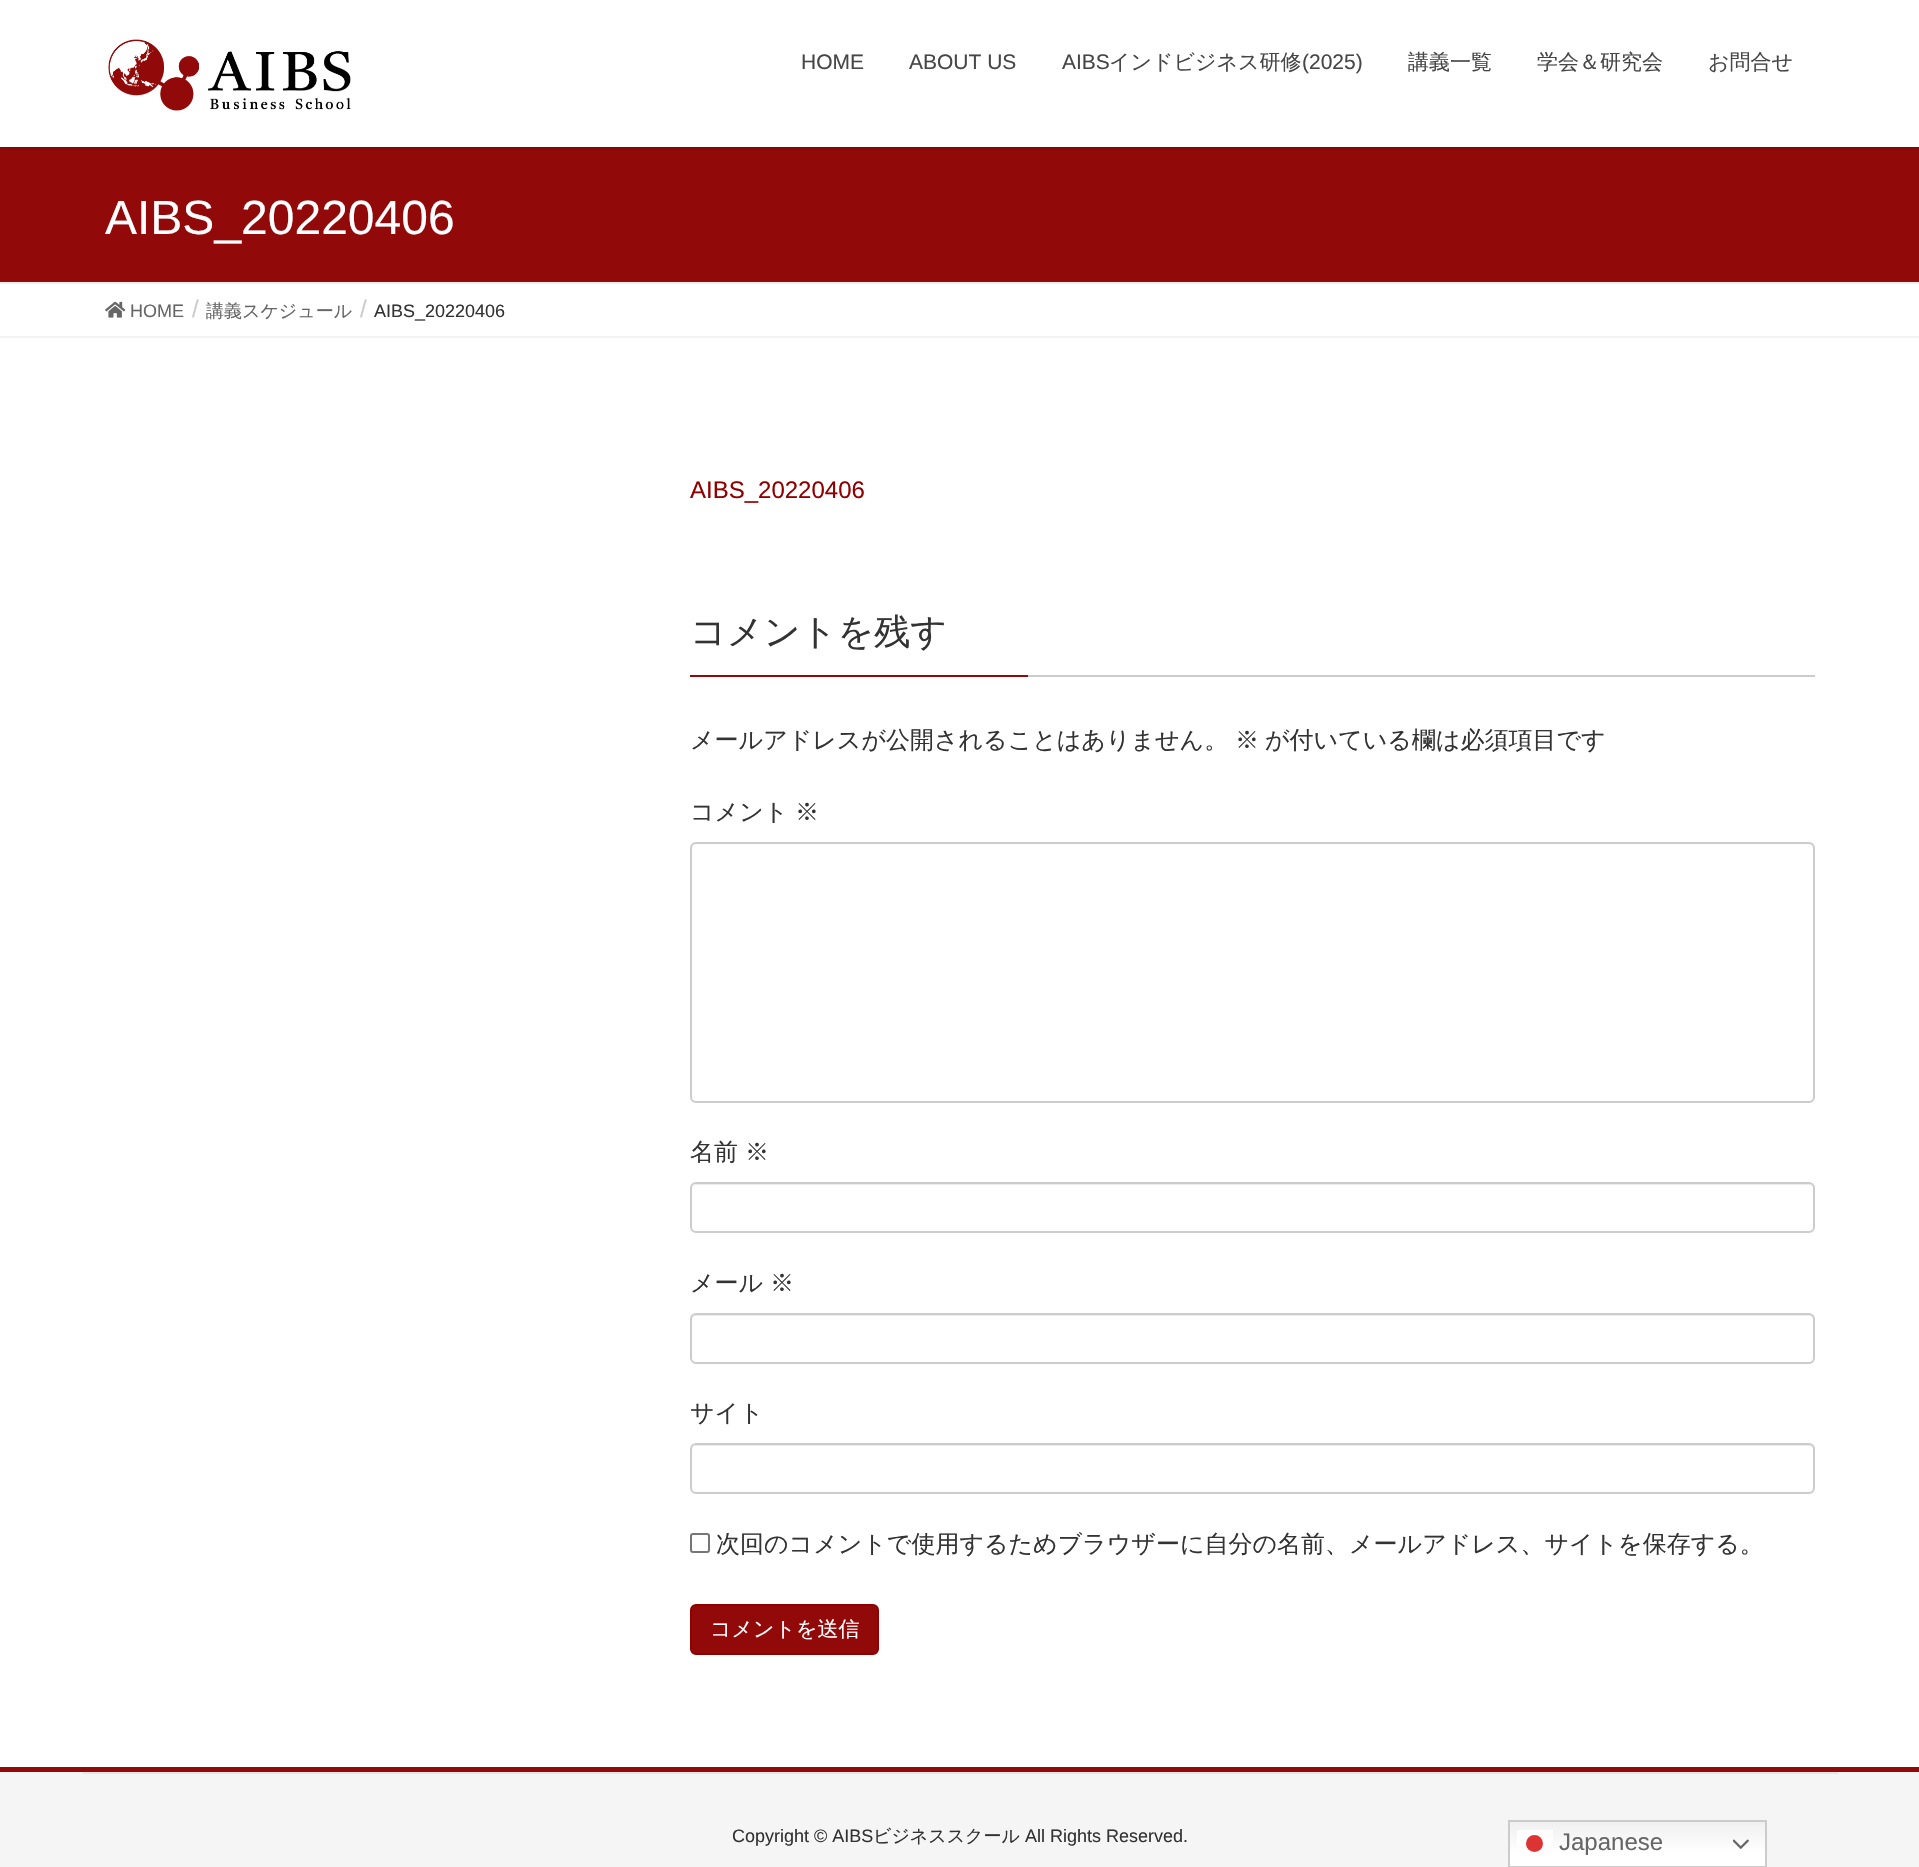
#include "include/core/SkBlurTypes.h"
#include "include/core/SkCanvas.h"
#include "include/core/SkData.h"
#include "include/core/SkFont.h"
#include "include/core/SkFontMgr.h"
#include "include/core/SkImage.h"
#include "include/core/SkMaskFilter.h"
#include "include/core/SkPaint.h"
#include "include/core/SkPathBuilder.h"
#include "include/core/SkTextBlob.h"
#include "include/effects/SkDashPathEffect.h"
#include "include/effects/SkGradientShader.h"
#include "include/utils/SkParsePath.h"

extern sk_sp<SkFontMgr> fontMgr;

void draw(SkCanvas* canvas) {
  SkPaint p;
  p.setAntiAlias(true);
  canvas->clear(SK_ColorWHITE);
  p.setColor(SkColorSetRGB(145, 9, 9));
  canvas->drawRect(SkRect::MakeLTRB(0, 147, 1919, 282), p);
  canvas->save();
  canvas->clipRect(SkRect::MakeLTRB(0, 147, 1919, 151));
  p.setColor(SkColorSetARGB(26, 0, 0, 0));
  p.setMaskFilter(SkMaskFilter::MakeBlur(kNormal_SkBlurStyle, 2));
  canvas->drawRect(SkRect::MakeLTRB(0, 2, 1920, 149), p);
  p.setMaskFilter(nullptr);
  canvas->restore();
  canvas->drawImageRect(SkImages::DeferredFromEncodedData(SkData::MakeFromFileName("images/1.png")), SkRect::MakeLTRB(108, 39, 351, 111), SkSamplingOptions());
  p.setColor(SkColorSetRGB(238, 238, 238));
  canvas->drawRect(SkRect::MakeLTRB(0, 282, 1919, 284), p);
  p.setColor(SkColorSetRGB(243, 243, 243));
  canvas->drawRect(SkRect::MakeLTRB(0, 336, 1919, 338), p);
  canvas->drawImageRect(SkImages::DeferredFromEncodedData(SkData::MakeFromFileName("images/2.png")), SkRect::MakeLTRB(105, 301, 126, 318), SkSamplingOptions());
  p.setColor(SkColorSetRGB(204, 204, 204));
  canvas->drawRect(SkRect::MakeLTRB(1028, 675, 1815, 677), p);
  p.setColor(SkColorSetRGB(145, 9, 9));
  canvas->drawRect(SkRect::MakeLTRB(690, 675, 1028, 677), p);
  p.setColor(SkColorSetRGB(236, 236, 236));
  canvas->drawPath(SkPathBuilder().moveTo(696, 844).lineTo(1809, 844).cubicTo(1811, 844, 1814, 847, 1814, 849).cubicTo(1814, 846, 1812, 843, 1809, 843).lineTo(697, 843).cubicTo(694, 843, 692, 846, 692, 849).cubicTo(692, 847, 694, 844, 696, 844).close().detach(), p);
  p.setStyle(SkPaint::kStroke_Style);
  p.setStrokeWidth(2);
  p.setColor(SkColorSetRGB(204, 204, 204));
  canvas->drawRoundRect(SkRect::MakeLTRB(691, 843, 1814, 1102), 5, 5, p);
  p.setStyle(SkPaint::kFill_Style);
  p.setColor(SkColorSetRGB(236, 236, 236));
  canvas->drawPath(SkPathBuilder().moveTo(696, 1185).lineTo(1809, 1185).cubicTo(1811, 1185, 1814, 1187, 1814, 1190).cubicTo(1814, 1187, 1812, 1184, 1809, 1184).lineTo(697, 1184).cubicTo(694, 1184, 692, 1187, 692, 1190).cubicTo(692, 1187, 694, 1185, 696, 1185).close().detach(), p);
  p.setStyle(SkPaint::kStroke_Style);
  p.setColor(SkColorSetRGB(204, 204, 204));
  canvas->drawRoundRect(SkRect::MakeLTRB(691, 1183, 1814, 1232), 5, 5, p);
  p.setStyle(SkPaint::kFill_Style);
  p.setColor(SkColorSetRGB(236, 236, 236));
  canvas->drawPath(SkPathBuilder().moveTo(696, 1316).lineTo(1809, 1316).cubicTo(1811, 1316, 1814, 1318, 1814, 1320).cubicTo(1814, 1317, 1812, 1314, 1809, 1314).lineTo(697, 1314).cubicTo(694, 1314, 692, 1317, 692, 1320).cubicTo(692, 1318, 694, 1316, 696, 1316).close().detach(), p);
  p.setStyle(SkPaint::kStroke_Style);
  p.setColor(SkColorSetRGB(204, 204, 204));
  canvas->drawRoundRect(SkRect::MakeLTRB(691, 1314, 1814, 1363), 5, 5, p);
  p.setStyle(SkPaint::kFill_Style);
  p.setColor(SkColorSetRGB(236, 236, 236));
  canvas->drawPath(SkPathBuilder().moveTo(696, 1446).lineTo(1809, 1446).cubicTo(1811, 1446, 1814, 1448, 1814, 1450).cubicTo(1814, 1447, 1812, 1445, 1809, 1445).lineTo(697, 1445).cubicTo(694, 1445, 692, 1447, 692, 1450).cubicTo(692, 1448, 694, 1446, 696, 1446).close().detach(), p);
  p.setStyle(SkPaint::kStroke_Style);
  p.setColor(SkColorSetRGB(204, 204, 204));
  canvas->drawRoundRect(SkRect::MakeLTRB(691, 1444, 1814, 1493), 5, 5, p);
  p.setColor(SkColorSetRGB(118, 118, 118));
  canvas->drawRoundRect(SkRect::MakeLTRB(691, 1534, 709, 1552), 2, 2, p);
  p.setStyle(SkPaint::kFill_Style);
  p.setColor(SkColorSetRGB(145, 9, 9));
  canvas->drawRoundRect(SkRect::MakeLTRB(691, 1605, 878, 1654), 5, 5, p);
  p.setStyle(SkPaint::kStroke_Style);
  p.setColor(SkColorSetRGB(145, 0, 0));
  canvas->drawRoundRect(SkRect::MakeLTRB(691, 1605, 878, 1654), 5, 5, p);
  p.setStyle(SkPaint::kFill_Style);
  p.setColor(SkColorSetRGB(245, 245, 245));
  canvas->drawRect(SkRect::MakeLTRB(0, 1772, 1919, 1867), p);
  p.setColor(SkColorSetRGB(145, 9, 9));
  canvas->drawRect(SkRect::MakeLTRB(0, 1767, 1919, 1772), p);
  p.setColor(SkColorSetRGB(229, 229, 229));
  canvas->drawRect(SkRect::MakeLTRB(83, 1772, 1838, 1774), p);
  {
    const SkColor colors[] = {SkColorSetRGB(239, 239, 239), SK_ColorWHITE};
    const float stops[] = {0, 0.7f};
    const SkPoint ends[] = {{1637, 1820}, {1637, 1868}};
    p.setShader(SkGradientShader::MakeLinear(ends, colors, stops, 2, SkTileMode::kClamp));
    p.setAlpha(255);
  }
  canvas->drawRect(SkRect::MakeLTRB(1510, 1822, 1765, 1866), p);
  {
    const SkColor colors[] = {SkColorSetRGB(252, 252, 252), SK_ColorWHITE};
    const float stops[] = {0, 0.7f};
    const SkPoint ends[] = {{1637, 1820}, {1637, 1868}};
    p.setShader(SkGradientShader::MakeLinear(ends, colors, stops, 2, SkTileMode::kClamp));
    p.setAlpha(255);
  }
  canvas->drawRect(SkRect::MakeLTRB(1517, 1830, 1553, 1846), p);
  p.setStyle(SkPaint::kStroke_Style);
  p.setShader(nullptr);
  p.setColor(SkColorSetRGB(204, 204, 204));
  canvas->drawRect(SkRect::MakeLTRB(1509, 1821, 1766, 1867), p);
  p.setStyle(SkPaint::kFill_Style);
  p.setColor(SkColorSetRGB(220, 51, 51));
  canvas->drawCircle(1534.5f, 1843.5f, 8.5f, p);
  canvas->drawImageRect(SkImages::DeferredFromEncodedData(SkData::MakeFromFileName("images/3.png")), SkRect::MakeLTRB(1733, 1839, 1749, 1849), SkSamplingOptions());
  SkFont font1(fontMgr->matchFamilyStyle("Liberation Sans", SkFontStyle::Normal()), 21);
  font1.setSubpixel(true);
  p.setColor(SkColorSetRGB(70, 70, 70));
  canvas->drawString("HOME", 801, 69, font1, p);
  canvas->drawString("ABOUT US", 909, 69, font1, p);
  canvas->drawString("AIBS", 1062, 69, font1, p);
  SkFont font2(fontMgr->matchFamilyStyle("WenQuanYi Zen Hei", SkFontStyle(500, SkFontStyle::kNormal_Width, SkFontStyle::kUpright_Slant)), 21);
  font2.setSubpixel(true);
  canvas->drawString("インドビジネス研修", 1109, 69, font2, p);
  canvas->drawString("(2025)", 1302, 69, font1, p);
  canvas->drawString("講義一覧", 1408, 69, font2, p);
  canvas->drawString("学会＆研究会", 1537, 69, font2, p);
  canvas->drawString("お問合せ", 1708, 69, font2, p);
  SkFont font3(fontMgr->matchFamilyStyle("Liberation Sans", SkFontStyle::Normal()), 48);
  font3.setSubpixel(true);
  p.setColor(SK_ColorWHITE);
  canvas->drawString("AIBS_20220406", 105, 234, font3, p);
  SkFont font4(fontMgr->matchFamilyStyle("Liberation Sans", SkFontStyle::Normal()), 18);
  font4.setSubpixel(true);
  p.setColor(SkColorSetRGB(102, 102, 102));
  canvas->drawString("HOME", 130, 317, font4, p);
  SkFont font5(fontMgr->matchFamilyStyle("Liberation Sans", SkFontStyle::Normal()), 24);
  font5.setSubpixel(true);
  p.setColor(SkColorSetRGB(204, 204, 204));
  canvas->drawString("/", 192, 317, font5, p);
  SkFont font6(fontMgr->matchFamilyStyle("WenQuanYi Zen Hei", SkFontStyle(500, SkFontStyle::kNormal_Width, SkFontStyle::kUpright_Slant)), 18);
  font6.setSubpixel(true);
  p.setColor(SkColorSetRGB(102, 102, 102));
  canvas->drawString("講義スケジュール", 206, 317, font6, p);
  p.setColor(SkColorSetRGB(204, 204, 204));
  canvas->drawString("/", 360, 317, font5, p);
  p.setColor(SkColorSetRGB(51, 51, 51));
  canvas->drawString("AIBS_20220406", 374, 317, font4, p);
  p.setColor(SkColorSetRGB(145, 0, 0));
  canvas->drawString("AIBS_20220406", 690, 498, font5, p);
  SkFont font7(fontMgr->matchFamilyStyle("WenQuanYi Zen Hei", SkFontStyle(500, SkFontStyle::kNormal_Width, SkFontStyle::kUpright_Slant)), 36);
  font7.setSubpixel(true);
  p.setColor(SkColorSetRGB(51, 51, 51));
  canvas->drawString("コメントを残す", 690, 644, font7, p);
  SkFont font8(fontMgr->matchFamilyStyle("WenQuanYi Zen Hei", SkFontStyle(500, SkFontStyle::kNormal_Width, SkFontStyle::kUpright_Slant)), 24);
  font8.setSubpixel(true);
  canvas->drawString("メールアドレスが公開されることはありません。", 690, 748, font8, p);
  canvas->drawString("※", 1235, 748, font8, p);
  canvas->drawString("が付いている欄は必須項目です", 1265, 748, font8, p);
  canvas->drawString("コメント", 690, 820, font8, p);
  canvas->drawString("※", 795, 820, font8, p);
  canvas->drawString("名前", 690, 1160, font8, p);
  canvas->drawString("※", 745, 1160, font8, p);
  canvas->drawString("メール", 690, 1291, font8, p);
  canvas->drawString("※", 770, 1291, font8, p);
  canvas->drawString("サイト", 690, 1421, font8, p);
  canvas->drawString("次回のコメントで使用するためブラウザーに自分の名前、メールアドレス、サイトを保存する。", 716, 1552, font8, p);
  p.setColor(SK_ColorWHITE);
  canvas->drawString("コメントを送信", 710, 1636, font2, p);
  p.setColor(SkColorSetRGB(51, 51, 51));
  canvas->drawString("Copyright © AIBS", 732, 1842, font4, p);
  canvas->drawString("ビジネススクール", 873, 1842, font6, p);
  canvas->drawString("All Rights Reserved.", 1025, 1842, font4, p);
  p.setColor(SkColorSetRGB(102, 102, 102));
  canvas->drawString("Japanese", 1559, 1850, font5, p);
}
